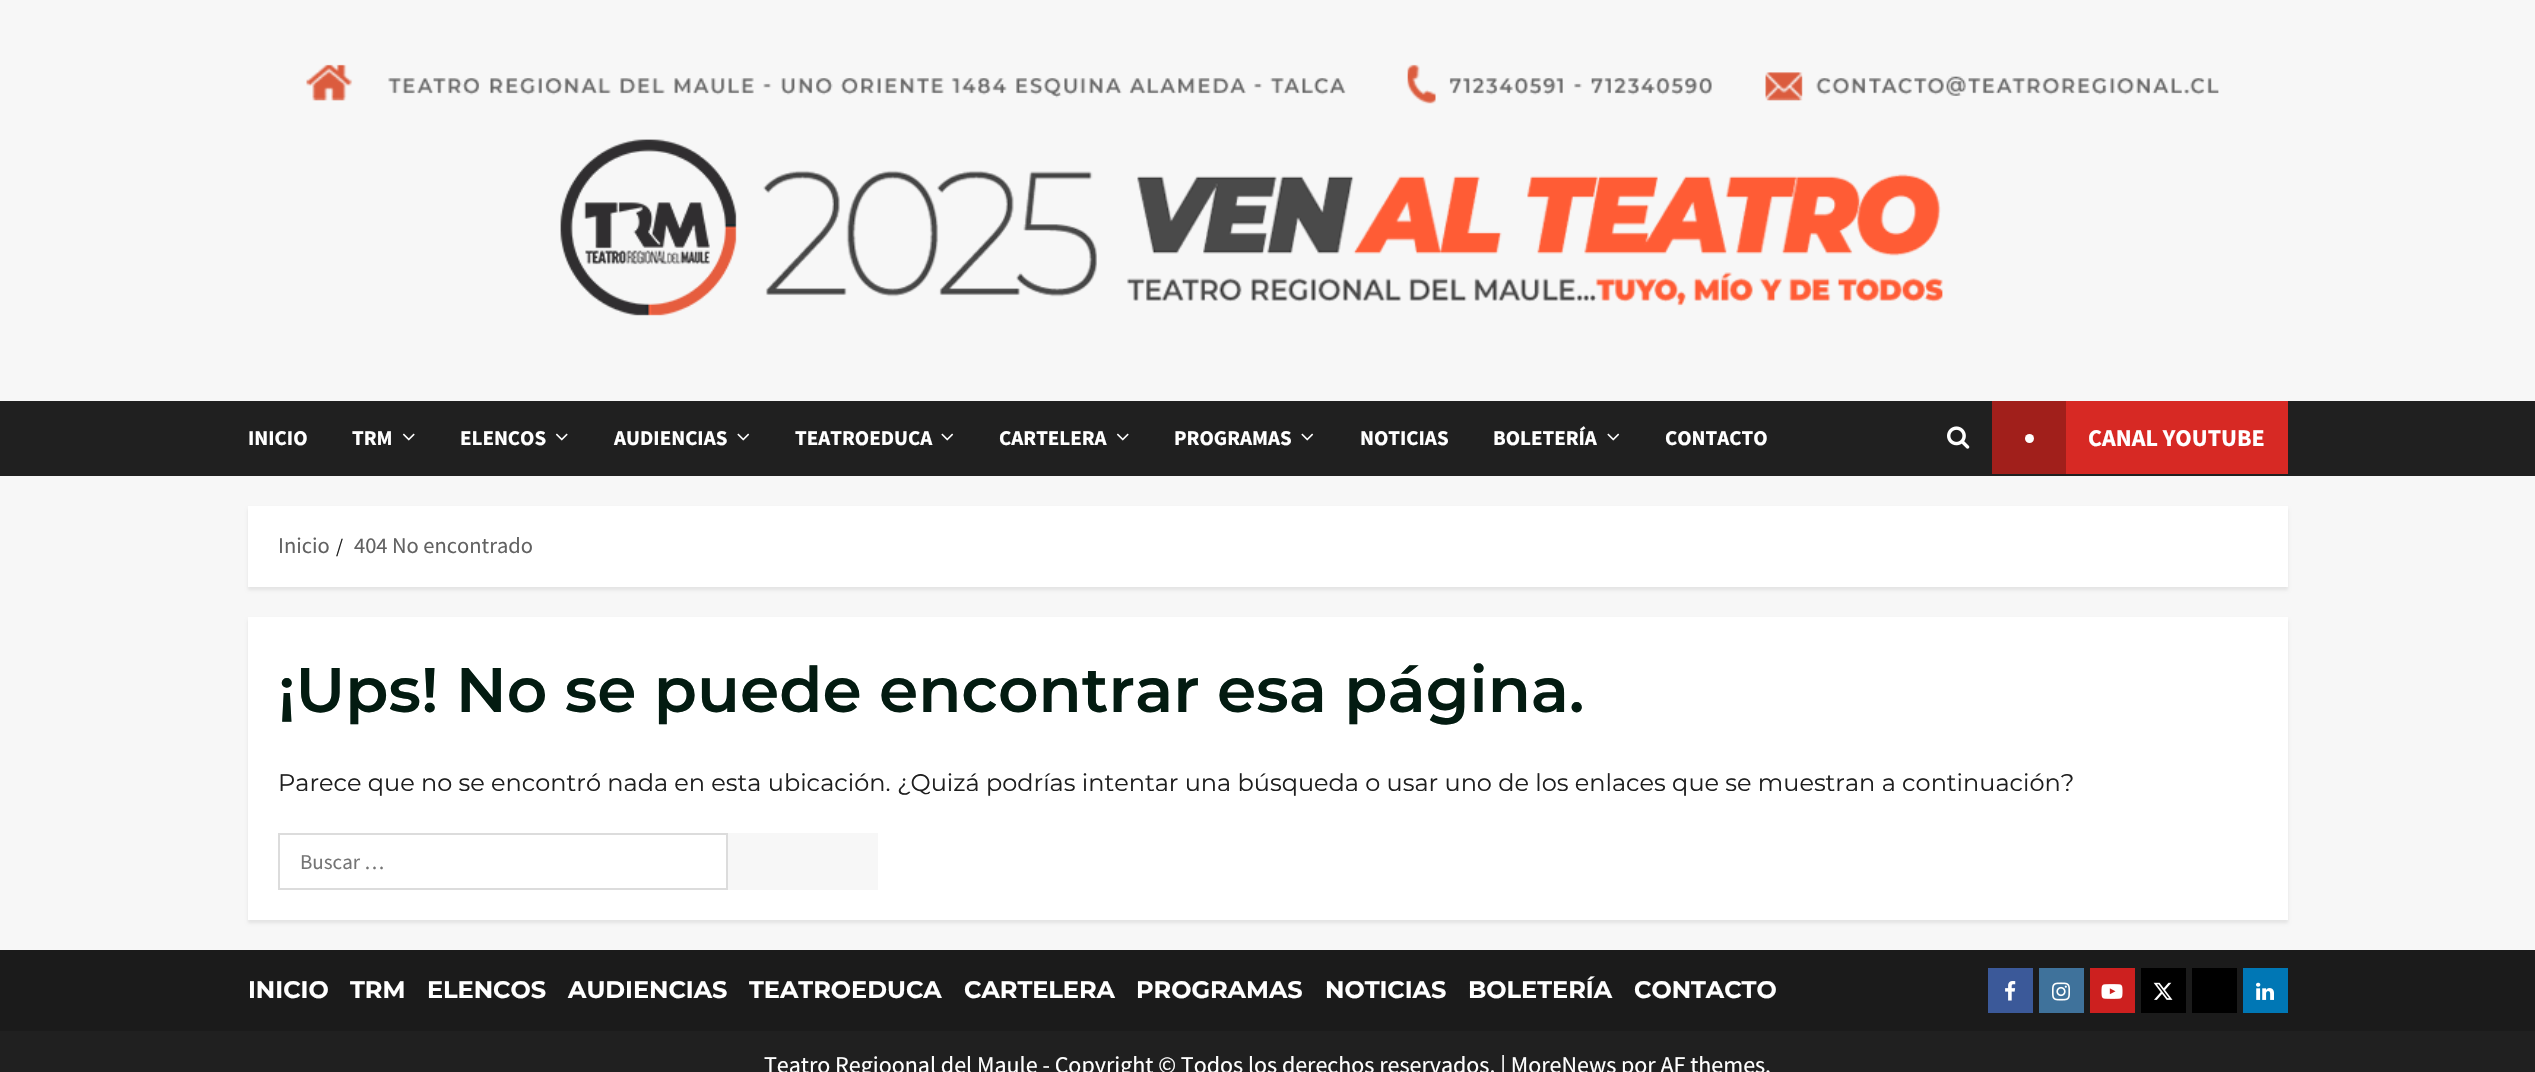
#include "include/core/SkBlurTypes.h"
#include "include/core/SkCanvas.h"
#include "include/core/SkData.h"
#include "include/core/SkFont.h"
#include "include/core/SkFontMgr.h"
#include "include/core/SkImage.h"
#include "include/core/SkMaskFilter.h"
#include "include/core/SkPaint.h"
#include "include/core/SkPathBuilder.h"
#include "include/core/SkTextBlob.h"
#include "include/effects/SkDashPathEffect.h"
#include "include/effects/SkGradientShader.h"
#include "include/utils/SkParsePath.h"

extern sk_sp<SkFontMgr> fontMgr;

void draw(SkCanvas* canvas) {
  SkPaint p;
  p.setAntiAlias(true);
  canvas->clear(SkColorSetRGB(247, 247, 247));
  canvas->drawImageRect(SkImages::DeferredFromEncodedData(SkData::MakeFromFileName("images/1.png")), SkRect::MakeLTRB(306, 64, 2219, 316), SkSamplingOptions());
  p.setColor(SkColorSetRGB(32, 32, 32));
  canvas->drawRect(SkRect::MakeLTRB(0, 401, 2535, 476), p);
  canvas->drawImageRect(SkImages::DeferredFromEncodedData(SkData::MakeFromFileName("images/2.png")), SkRect::MakeLTRB(402, 433, 415, 441), SkSamplingOptions());
  canvas->drawImageRect(SkImages::DeferredFromEncodedData(SkData::MakeFromFileName("images/2.png")), SkRect::MakeLTRB(555, 433, 568, 441), SkSamplingOptions());
  canvas->drawImageRect(SkImages::DeferredFromEncodedData(SkData::MakeFromFileName("images/3.png")), SkRect::MakeLTRB(737, 433, 750, 441), SkSamplingOptions());
  canvas->drawImageRect(SkImages::DeferredFromEncodedData(SkData::MakeFromFileName("images/3.png")), SkRect::MakeLTRB(941, 433, 954, 441), SkSamplingOptions());
  canvas->drawImageRect(SkImages::DeferredFromEncodedData(SkData::MakeFromFileName("images/2.png")), SkRect::MakeLTRB(1116, 433, 1129, 441), SkSamplingOptions());
  canvas->drawImageRect(SkImages::DeferredFromEncodedData(SkData::MakeFromFileName("images/3.png")), SkRect::MakeLTRB(1301, 433, 1314, 441), SkSamplingOptions());
  canvas->drawImageRect(SkImages::DeferredFromEncodedData(SkData::MakeFromFileName("images/3.png")), SkRect::MakeLTRB(1607, 433, 1620, 441), SkSamplingOptions());
  canvas->drawImageRect(SkImages::DeferredFromEncodedData(SkData::MakeFromFileName("images/4.png")), SkRect::MakeLTRB(1947, 426, 1970, 449), SkSamplingOptions());
  p.setColor(SkColorSetRGB(215, 41, 36));
  canvas->drawRect(SkRect::MakeLTRB(2066, 401, 2288, 474), p);
  p.setColor(SkColorSetRGB(161, 31, 27));
  canvas->drawRect(SkRect::MakeLTRB(1992, 401, 2066, 474), p);
  p.setColor(SK_ColorWHITE);
  canvas->drawCircle(2029.5f, 438.5f, 4.5f, p);
  p.setColor(SkColorSetARGB(20, 0, 0, 0));
  p.setMaskFilter(SkMaskFilter::MakeBlur(kNormal_SkBlurStyle, 1.5f));
  canvas->drawRect(SkRect::MakeLTRB(248, 509, 2288, 590), p);
  p.setMaskFilter(nullptr);
  p.setColor(SK_ColorWHITE);
  canvas->drawRect(SkRect::MakeLTRB(248, 506, 2288, 587), p);
  p.setColor(SkColorSetARGB(20, 0, 0, 0));
  p.setMaskFilter(SkMaskFilter::MakeBlur(kNormal_SkBlurStyle, 1.5f));
  canvas->drawRect(SkRect::MakeLTRB(248, 620, 2288, 923), p);
  p.setMaskFilter(nullptr);
  p.setColor(SK_ColorWHITE);
  canvas->drawRect(SkRect::MakeLTRB(248, 617, 2288, 920), p);
  p.setStyle(SkPaint::kStroke_Style);
  p.setStrokeWidth(2);
  p.setColor(SkColorSetRGB(220, 220, 220));
  canvas->drawRect(SkRect::MakeLTRB(279, 834, 727, 889), p);
  p.setStyle(SkPaint::kFill_Style);
  p.setColor(SkColorSetRGB(247, 247, 247));
  canvas->drawRect(SkRect::MakeLTRB(728, 833, 878, 890), p);
  p.setColor(SkColorSetRGB(32, 32, 32));
  canvas->drawRect(SkRect::MakeLTRB(0, 1031, 2535, 1072), p);
  p.setColor(SkColorSetRGB(27, 27, 27));
  canvas->drawRect(SkRect::MakeLTRB(0, 950, 2535, 1031), p);
  p.setColor(SkColorSetRGB(59, 89, 153));
  canvas->drawRect(SkRect::MakeLTRB(1988, 968, 2033, 1013), p);
  canvas->drawImageRect(SkImages::DeferredFromEncodedData(SkData::MakeFromFileName("images/5.png")), SkRect::MakeLTRB(2005, 981, 2016, 1001), SkSamplingOptions());
  p.setColor(SkColorSetRGB(63, 114, 155));
  canvas->drawRect(SkRect::MakeLTRB(2039, 968, 2084, 1013), p);
  canvas->drawImageRect(SkImages::DeferredFromEncodedData(SkData::MakeFromFileName("images/6.png")), SkRect::MakeLTRB(2052, 982, 2070, 1001), SkSamplingOptions());
  p.setColor(SkColorSetRGB(205, 32, 31));
  canvas->drawRect(SkRect::MakeLTRB(2090, 968, 2135, 1013), p);
  canvas->drawImageRect(SkImages::DeferredFromEncodedData(SkData::MakeFromFileName("images/7.png")), SkRect::MakeLTRB(2101, 984, 2123, 999), SkSamplingOptions());
  p.setColor(SK_ColorBLACK);
  canvas->drawRect(SkRect::MakeLTRB(2141, 968, 2186, 1013), p);
  canvas->drawImageRect(SkImages::DeferredFromEncodedData(SkData::MakeFromFileName("images/8.png")), SkRect::MakeLTRB(2153, 982, 2173, 1000), SkSamplingOptions());
  canvas->drawRect(SkRect::MakeLTRB(2192, 968, 2237, 1013), p);
  p.setColor(SkColorSetRGB(0, 119, 181));
  canvas->drawRect(SkRect::MakeLTRB(2243, 968, 2288, 1013), p);
  canvas->drawImageRect(SkImages::DeferredFromEncodedData(SkData::MakeFromFileName("images/9.png")), SkRect::MakeLTRB(2256, 982, 2274, 1000), SkSamplingOptions());
  SkFont font1(fontMgr->matchFamilyStyle("Source Sans Pro", SkFontStyle::Bold()), 21);
  font1.setSubpixel(true);
  p.setColor(SK_ColorWHITE);
  canvas->drawString("INICIO", 248, 445, font1, p);
  canvas->drawString("TRM", 352, 445, font1, p);
  canvas->drawString("ELENCOS", 460, 445, font1, p);
  canvas->drawString("AUDIENCIAS", 614, 445, font1, p);
  canvas->drawString("TEATROEDUCA", 795, 445, font1, p);
  canvas->drawString("CARTELERA", 999, 445, font1, p);
  canvas->drawString("PROGRAMAS", 1174, 445, font1, p);
  canvas->drawString("NOTICIAS", 1360, 445, font1, p);
  canvas->drawString("BOLETERÍA", 1493, 445, font1, p);
  canvas->drawString("CONTACTO", 1665, 445, font1, p);
  SkFont font2(fontMgr->matchFamilyStyle("Source Sans Pro", SkFontStyle::Bold()), 24);
  font2.setSubpixel(true);
  canvas->drawString("CANAL YOUTUBE", 2088, 446, font2, p);
  SkFont font3(fontMgr->matchFamilyStyle("Source Sans Pro", SkFontStyle::Normal()), 22.5f);
  font3.setSubpixel(true);
  p.setColor(SkColorSetRGB(98, 98, 98));
  canvas->drawString("Inicio", 278, 553, font3, p);
  SkFont font4(fontMgr->matchFamilyStyle("Source Sans Pro", SkFontStyle::Normal()), 20);
  font4.setSubpixel(true);
  p.setColor(SkColorSetRGB(31, 31, 31));
  canvas->drawString("/", 336, 553, font4, p);
  p.setColor(SkColorSetRGB(98, 98, 98));
  canvas->drawString("404 No encontrado", 354, 553, font3, p);
  SkFont font5(fontMgr->matchFamilyStyle("Montserrat", SkFontStyle(600, SkFontStyle::kNormal_Width, SkFontStyle::kUpright_Slant)), 63);
  font5.setSubpixel(true);
  p.setColor(SkColorSetRGB(3, 27, 17));
  canvas->drawString("¡Ups! No se puede encontrar esa página.", 278, 712, font5, p);
  SkFont font6(fontMgr->matchFamilyStyle("Montserrat", SkFontStyle::Normal()), 24);
  font6.setSubpixel(true);
  p.setColor(SkColorSetRGB(31, 31, 31));
  canvas->drawString("Parece que no se encontró nada en esta ubicación. ¿Quizá podrías intentar una búsqueda o usar uno de los enlaces que se muestran a continuación?", 278, 791, font6, p);
  SkFont font7(fontMgr->matchFamilyStyle("Source Sans Pro", SkFontStyle::Normal()), 21);
  font7.setSubpixel(true);
  p.setColor(SkColorSetRGB(117, 117, 117));
  canvas->drawString("Buscar …", 300, 869, font7, p);
  SkFont font8(fontMgr->matchFamilyStyle("Montserrat", SkFontStyle::Bold()), 24);
  font8.setSubpixel(true);
  p.setColor(SK_ColorWHITE);
  canvas->drawString("INICIO", 248, 998, font8, p);
  canvas->drawString("TRM", 350, 998, font8, p);
  canvas->drawString("ELENCOS", 427, 998, font8, p);
  canvas->drawString("AUDIENCIAS", 568, 998, font8, p);
  canvas->drawString("TEATROEDUCA", 749, 998, font8, p);
  canvas->drawString("CARTELERA", 964, 998, font8, p);
  canvas->drawString("PROGRAMAS", 1136, 998, font8, p);
  canvas->drawString("NOTICIAS", 1325, 998, font8, p);
  canvas->drawString("BOLETERÍA", 1468, 998, font8, p);
  canvas->drawString("CONTACTO", 1634, 998, font8, p);
  SkFont font9(fontMgr->matchFamilyStyle("Source Sans Pro", SkFontStyle::Normal()), 24);
  font9.setSubpixel(true);
  canvas->drawString("Teatro Regioonal del Maule - Copyright © Todos los derechos reservados. | MoreNews por AF themes.", 764, 1073, font9, p);
}
